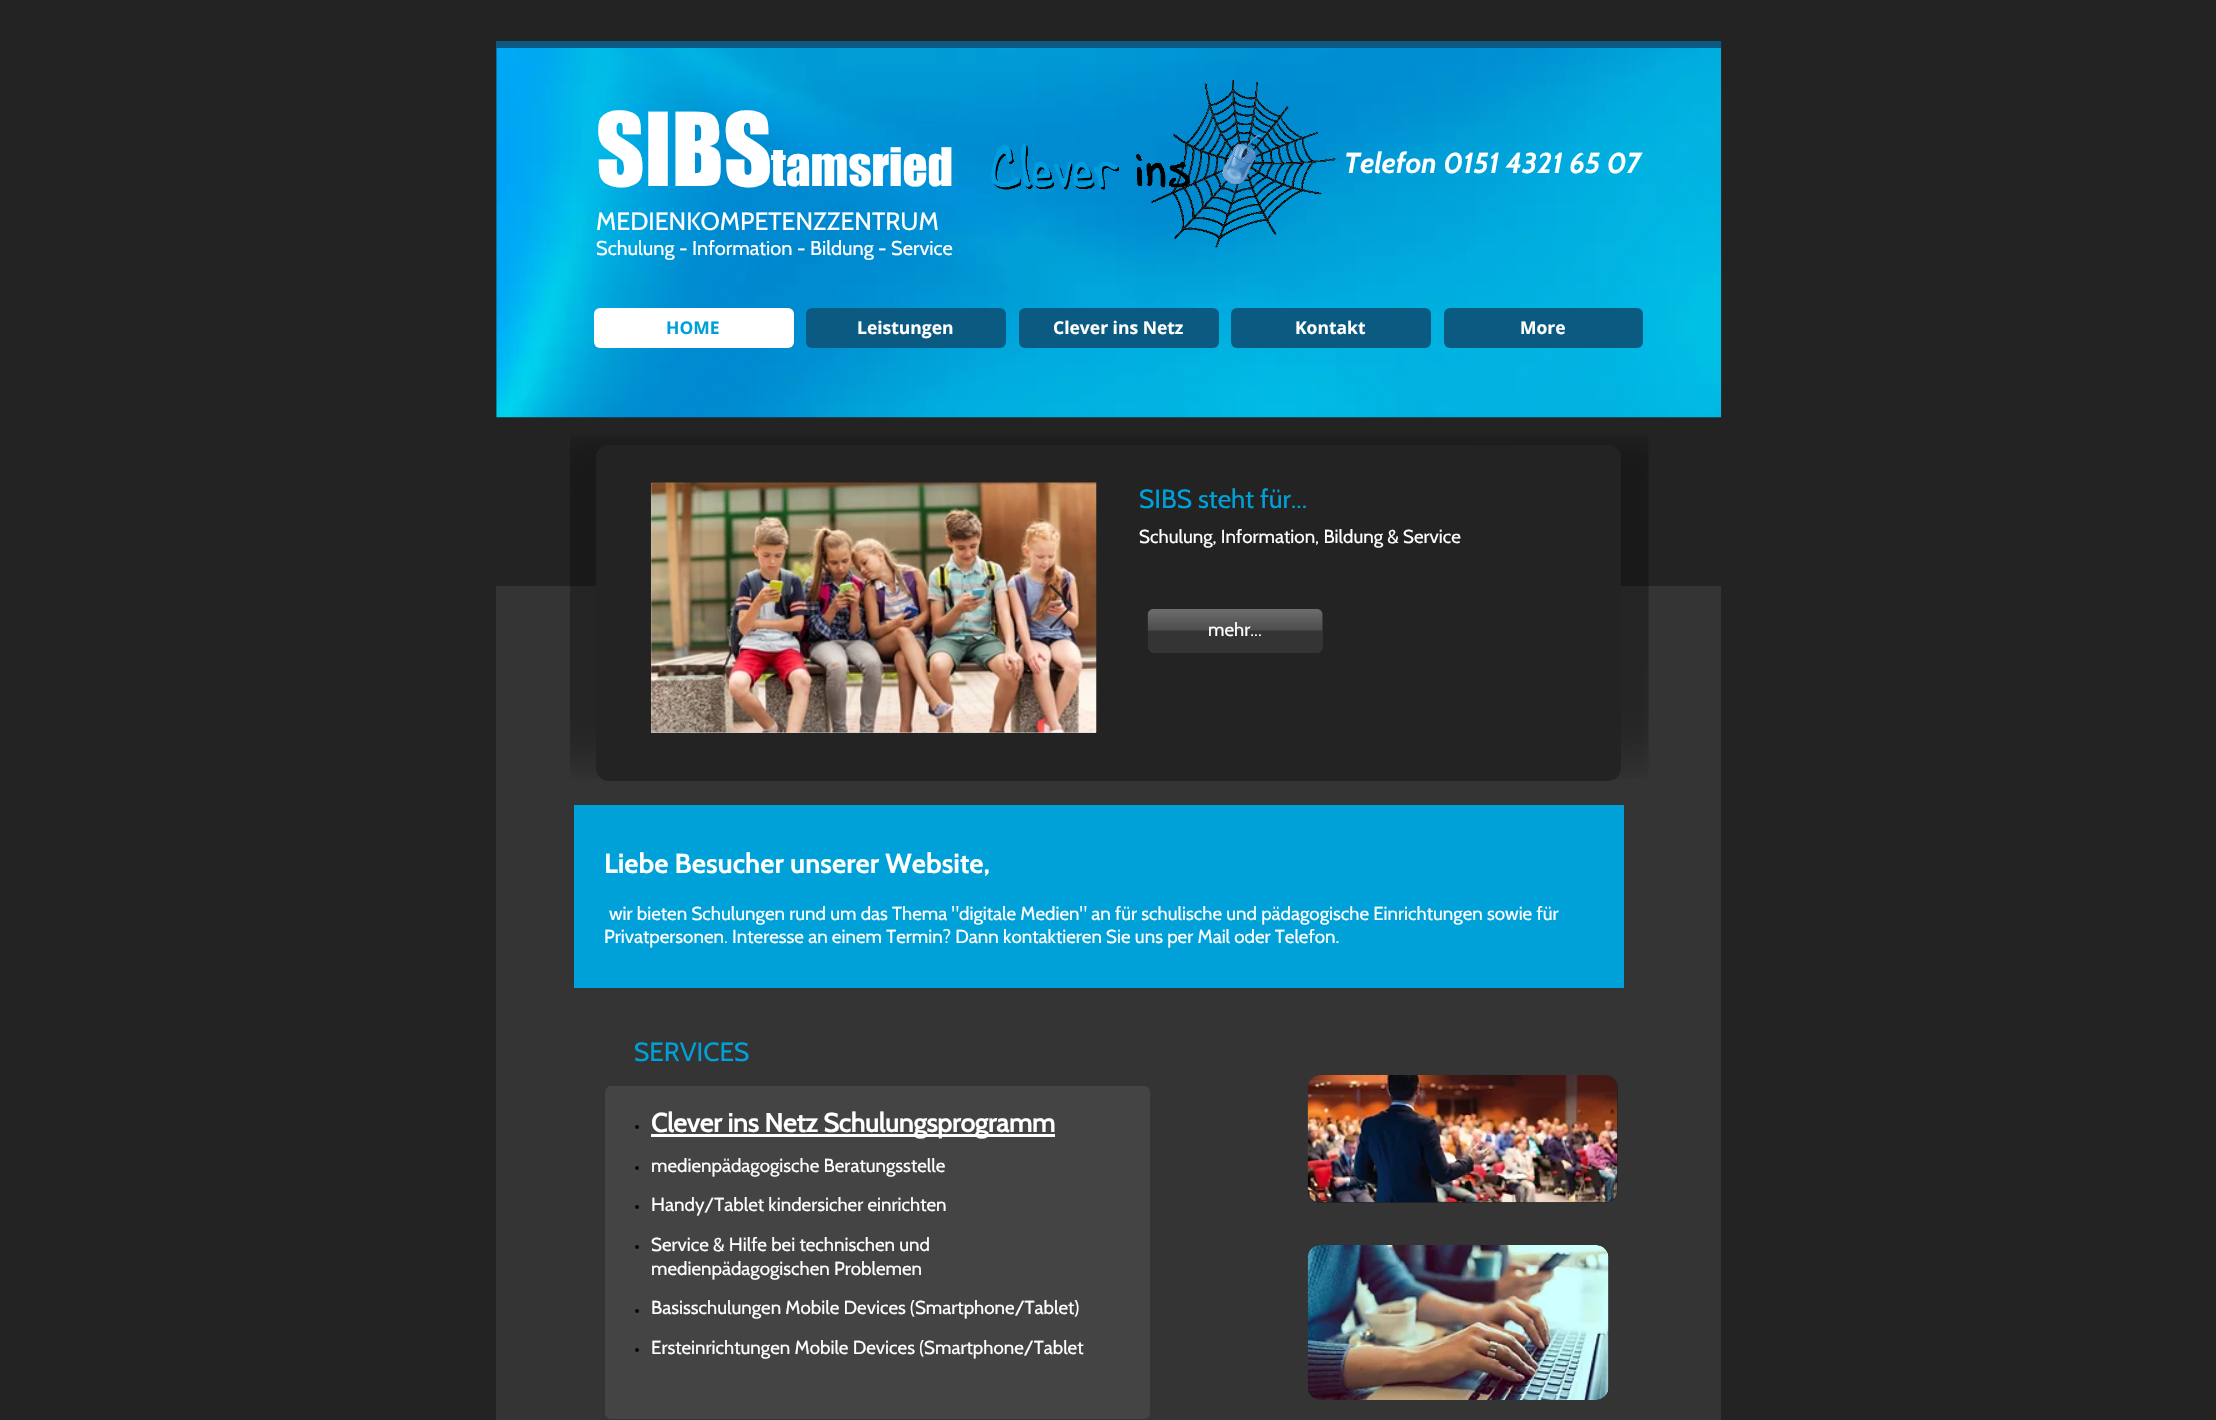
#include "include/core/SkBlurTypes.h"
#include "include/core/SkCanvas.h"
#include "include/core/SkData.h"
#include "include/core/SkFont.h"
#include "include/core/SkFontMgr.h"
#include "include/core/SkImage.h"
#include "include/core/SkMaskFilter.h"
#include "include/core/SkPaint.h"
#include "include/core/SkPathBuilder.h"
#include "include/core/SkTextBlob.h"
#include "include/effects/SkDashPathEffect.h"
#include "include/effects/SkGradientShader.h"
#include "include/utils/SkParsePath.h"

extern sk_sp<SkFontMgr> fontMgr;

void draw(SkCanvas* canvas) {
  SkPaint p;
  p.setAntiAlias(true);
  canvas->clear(SkColorSetRGB(35, 35, 35));
  canvas->drawImageRect(SkImages::DeferredFromEncodedData(SkData::MakeFromFileName("images/1.png")), SkRect::MakeLTRB(496, 44, 1722, 418), SkSamplingOptions());
  p.setColor(SkColorSetRGB(10, 90, 130));
  canvas->drawRect(SkRect::MakeLTRB(496, 41, 1721, 48), p);
  canvas->drawImageRect(SkImages::DeferredFromEncodedData(SkData::MakeFromFileName("images/2.png")), SkRect::MakeLTRB(991, 80, 1336, 248), SkSamplingOptions());
  p.setColor(SK_ColorWHITE);
  canvas->drawRoundRect(SkRect::MakeLTRB(594, 308, 794, 348), 6, 6, p);
  p.setColor(SkColorSetRGB(10, 90, 130));
  canvas->drawRoundRect(SkRect::MakeLTRB(806, 308, 1006, 348), 6, 6, p);
  canvas->drawRoundRect(SkRect::MakeLTRB(1019, 308, 1219, 348), 6, 6, p);
  canvas->drawRoundRect(SkRect::MakeLTRB(1231, 308, 1431, 348), 6, 6, p);
  canvas->drawRoundRect(SkRect::MakeLTRB(1444, 308, 1643, 348), 6, 6, p);
  p.setColor(SkColorSetRGB(52, 52, 52));
  canvas->drawRect(SkRect::MakeLTRB(496, 586, 1721, 1420), p);
  canvas->drawImageRect(SkImages::DeferredFromEncodedData(SkData::MakeFromFileName("images/3.png")), SkRect::MakeLTRB(570, 435, 1649, 779), SkSamplingOptions());
  p.setColor(SkColorSetRGB(35, 35, 35));
  canvas->drawRoundRect(SkRect::MakeLTRB(596, 445, 1621, 781), 13, 13, p);
  p.setColor(SkColorSetRGB(207, 207, 207));
  canvas->drawRect(SkRect::MakeLTRB(651, 483, 1096, 733), p);
  canvas->drawImageRect(SkImages::DeferredFromEncodedData(SkData::MakeFromFileName("images/4.png")), SkRect::MakeLTRB(651, 482, 1097, 733), SkSamplingOptions());
  p.setColor(SkColorSetARGB(230, 35, 35, 35));
  canvas->drawPath(SkPathBuilder().moveTo(1049, 586).lineTo(1051, 584).lineTo(1073, 606).lineTo(1051, 629).lineTo(1049, 627).lineTo(1070, 606).close().detach(), p);
  p.setColor(SkColorSetRGB(52, 52, 52));
  canvas->drawRoundRect(SkRect::MakeLTRB(1148, 609, 1323, 653), 6, 6, p);
  canvas->drawImageRect(SkImages::DeferredFromEncodedData(SkData::MakeFromFileName("images/5.png")), SkRect::MakeLTRB(1147, 609, 1323, 631), SkSamplingOptions());
  p.setColor(SkColorSetRGB(0, 160, 217));
  canvas->drawRect(SkRect::MakeLTRB(574, 805, 1624, 988), p);
  p.setColor(SkColorSetRGB(68, 68, 68));
  canvas->drawRoundRect(SkRect::MakeLTRB(605, 1086, 1150, 1419), 6, 6, p);
  p.setColor(SkColorSetRGB(8, 8, 8));
  canvas->drawCircle(637, 1127, 2, p);
  p.setColor(SK_ColorWHITE);
  canvas->drawRect(SkRect::MakeLTRB(651, 1134, 1055, 1137), p);
  p.setColor(SkColorSetRGB(8, 8, 8));
  canvas->drawCircle(637, 1168, 2, p);
  canvas->drawCircle(637, 1207, 2, p);
  canvas->drawCircle(637, 1247, 2, p);
  canvas->drawCircle(637, 1311, 2, p);
  canvas->drawCircle(637, 1350, 2, p);
  p.setColor(SkColorSetRGB(35, 35, 35));
  canvas->drawRoundRect(SkRect::MakeLTRB(1308, 1075, 1618, 1203), 13, 13, p);
  canvas->drawImageRect(SkImages::DeferredFromEncodedData(SkData::MakeFromFileName("images/6.png")), SkRect::MakeLTRB(1307, 1075, 1618, 1203), SkSamplingOptions());
  canvas->drawRoundRect(SkRect::MakeLTRB(1308, 1245, 1609, 1400), 13, 13, p);
  canvas->drawImageRect(SkImages::DeferredFromEncodedData(SkData::MakeFromFileName("images/7.png")), SkRect::MakeLTRB(1307, 1245, 1609, 1400), SkSamplingOptions());
  SkFont font1(fontMgr->matchFamilyStyle("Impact", SkFontStyle::Normal()), 94);
  font1.setSubpixel(true);
  p.setColor(SK_ColorWHITE);
  canvas->drawString("SIBS", 596, 186, font1, p);
  SkFont font2(fontMgr->matchFamilyStyle("Impact", SkFontStyle::Normal()), 49);
  font2.setSubpixel(true);
  canvas->drawString("tamsried", 771, 186, font2, p);
  SkFont font3(fontMgr->matchFamilyStyle("Cabin", SkFontStyle::Normal()), 25);
  font3.setSubpixel(true);
  canvas->drawString("MEDIENKOMPETENZZENTRUM", 596, 230, font3, p);
  SkFont font4(fontMgr->matchFamilyStyle("Cabin", SkFontStyle::Normal()), 20);
  font4.setSubpixel(true);
  canvas->drawString("Schulung - Information - Bildung - Service", 596, 255, font4, p);
  SkFont font5(fontMgr->matchFamilyStyle("Cabin", SkFontStyle::BoldItalic()), 28.75f);
  font5.setSubpixel(true);
  canvas->drawString("Telefon 0151 4321 65 07", 1344, 173, font5, p);
  SkFont font6(fontMgr->matchFamilyStyle("Open Sans", SkFontStyle::Bold()), 17.5f);
  font6.setSubpixel(true);
  p.setColor(SkColorSetRGB(0, 160, 217));
  canvas->drawString("HOME", 666, 334, font6, p);
  p.setColor(SK_ColorWHITE);
  canvas->drawString("Leistungen", 857, 334, font6, p);
  canvas->drawString("Clever ins Netz", 1053, 334, font6, p);
  canvas->drawString("Kontakt", 1295, 334, font6, p);
  canvas->drawString("More", 1520, 334, font6, p);
  SkFont font7(fontMgr->matchFamilyStyle("Cabin", SkFontStyle::Normal()), 26.25f);
  font7.setSubpixel(true);
  p.setColor(SkColorSetRGB(0, 160, 217));
  canvas->drawString("SIBS steht für...", 1139, 508, font7, p);
  SkFont font8(fontMgr->matchFamilyStyle("Cabin", SkFontStyle::Normal()), 18.75f);
  font8.setSubpixel(true);
  p.setColor(SK_ColorWHITE);
  canvas->drawString("Schulung, Information, Bildung & Service", 1139, 543, font8, p);
  canvas->drawString("mehr...", 1208, 636, font8, p);
  SkFont font9(fontMgr->matchFamilyStyle("Cabin", SkFontStyle::Bold()), 27.5f);
  font9.setSubpixel(true);
  canvas->drawString("Liebe Besucher unserer Website,", 604, 873, font9, p);
  canvas->drawString("wir bieten Schulungen rund um das Thema \"digitale Medien\" an für schulische und pädagogische Einrichtungen sowie für", 609, 920, font8, p);
  canvas->drawString("Privatpersonen. Interesse an einem Termin? Dann kontaktieren Sie uns per Mail oder Telefon.", 604, 943, font8, p);
  p.setColor(SkColorSetRGB(0, 160, 217));
  canvas->drawString("SERVICES", 634, 1061, font7, p);
  SkFont font10(fontMgr->matchFamilyStyle("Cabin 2", SkFontStyle::Bold()), 26.25f);
  font10.setSubpixel(true);
  p.setColor(SK_ColorWHITE);
  canvas->drawString("Clever ins Netz Schulungsprogramm", 651, 1132, font10, p);
  canvas->drawString("medienpädagogische Beratungsstelle", 651, 1172, font8, p);
  canvas->drawString("Handy/Tablet kindersicher einrichten", 651, 1211, font8, p);
  canvas->drawString("Service & Hilfe bei technischen und", 651, 1251, font8, p);
  canvas->drawString("medienpädagogischen Problemen", 651, 1275, font8, p);
  canvas->drawString("Basisschulungen Mobile Devices (Smartphone/Tablet)", 651, 1314, font8, p);
  canvas->drawString("Ersteinrichtungen Mobile Devices (Smartphone/Tablet", 651, 1354, font8, p);
}
